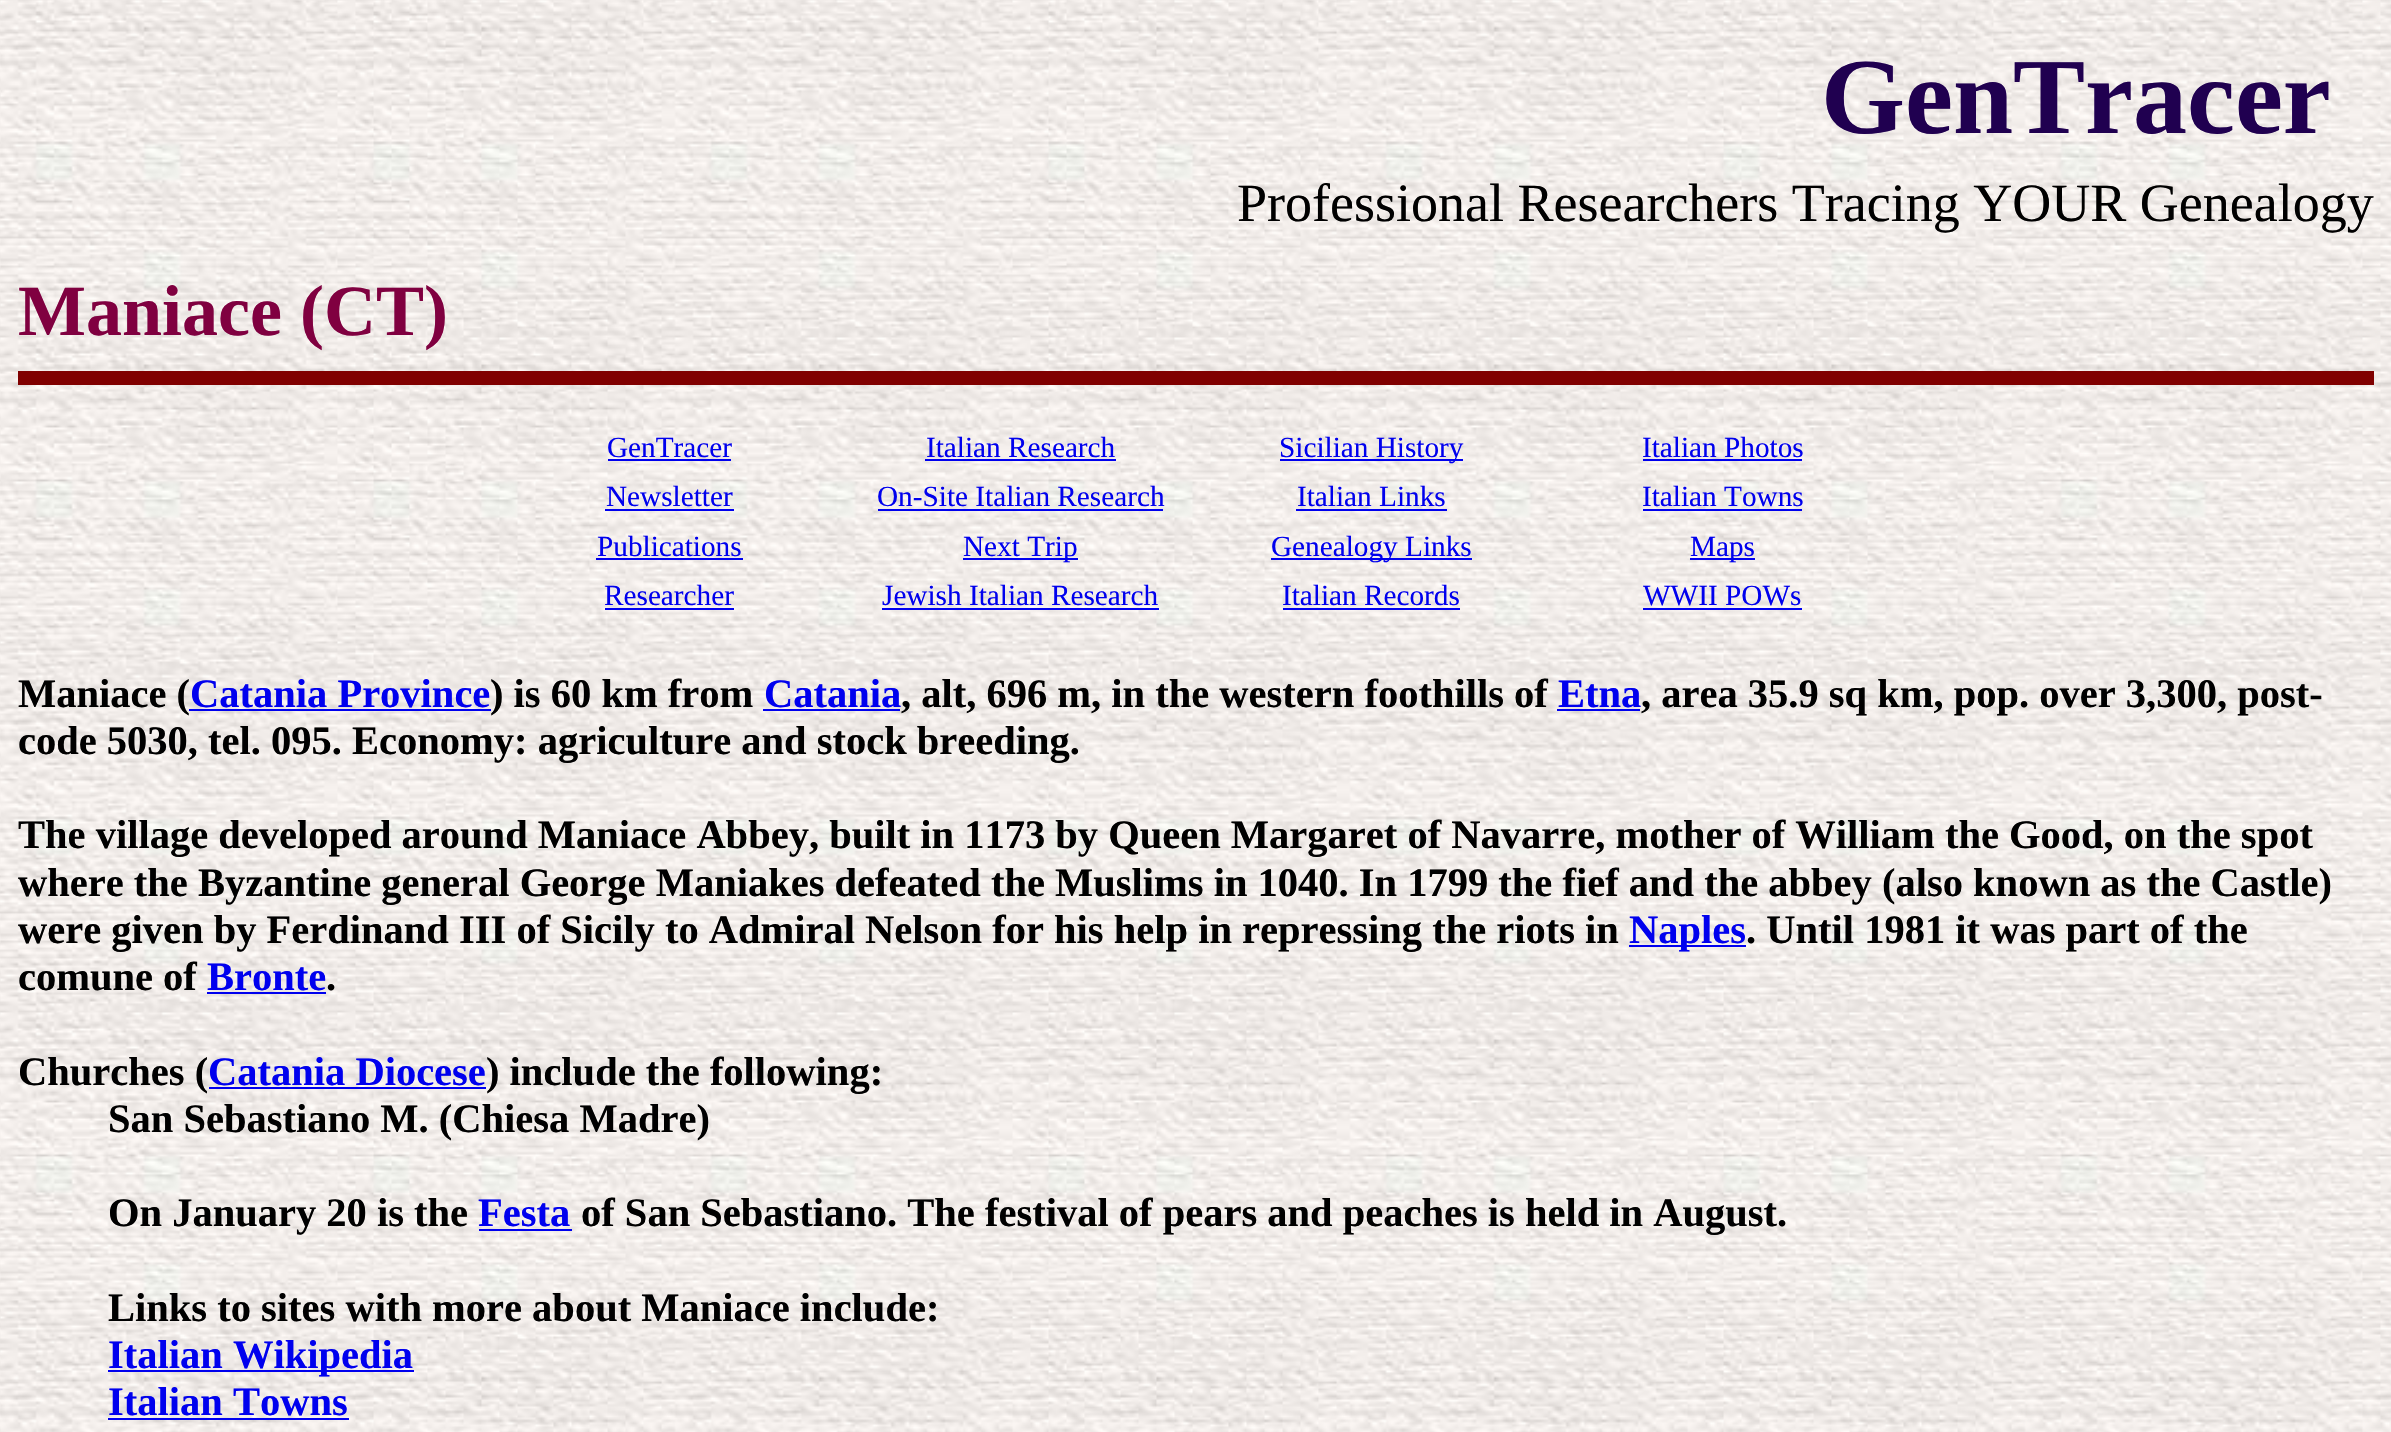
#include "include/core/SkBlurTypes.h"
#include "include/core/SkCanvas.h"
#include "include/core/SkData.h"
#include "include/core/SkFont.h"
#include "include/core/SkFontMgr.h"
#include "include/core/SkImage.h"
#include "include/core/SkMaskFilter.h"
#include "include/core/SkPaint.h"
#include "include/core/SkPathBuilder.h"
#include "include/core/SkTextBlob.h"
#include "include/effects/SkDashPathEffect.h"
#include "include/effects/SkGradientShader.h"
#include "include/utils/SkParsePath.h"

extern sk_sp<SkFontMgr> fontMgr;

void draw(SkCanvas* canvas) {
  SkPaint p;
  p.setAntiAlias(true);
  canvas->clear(SK_ColorWHITE);
  canvas->drawImageRect(SkImages::DeferredFromEncodedData(SkData::MakeFromFileName("images/1.png")), SkRect::MakeLTRB(0, 0, 2391, 1432), SkSamplingOptions());
  p.setColor(SkColorSetRGB(128, 0, 0));
  canvas->drawRect(SkRect::MakeLTRB(18, 371, 2374, 385), p);
  p.setColor(SkColorSetRGB(0, 0, 238));
  canvas->drawRect(SkRect::MakeLTRB(608, 459, 731, 461), p);
  canvas->drawRect(SkRect::MakeLTRB(925, 459, 1116, 461), p);
  canvas->drawRect(SkRect::MakeLTRB(1280, 459, 1463, 461), p);
  canvas->drawRect(SkRect::MakeLTRB(1643, 459, 1802, 461), p);
  canvas->drawRect(SkRect::MakeLTRB(605, 509, 734, 511), p);
  canvas->drawRect(SkRect::MakeLTRB(878, 509, 1163, 511), p);
  canvas->drawRect(SkRect::MakeLTRB(1296, 509, 1447, 511), p);
  canvas->drawRect(SkRect::MakeLTRB(1643, 509, 1802, 511), p);
  canvas->drawRect(SkRect::MakeLTRB(596, 558, 743, 560), p);
  canvas->drawRect(SkRect::MakeLTRB(963, 558, 1078, 560), p);
  canvas->drawRect(SkRect::MakeLTRB(1271, 558, 1472, 560), p);
  canvas->drawRect(SkRect::MakeLTRB(1690, 558, 1755, 560), p);
  canvas->drawRect(SkRect::MakeLTRB(605, 608, 734, 610), p);
  canvas->drawRect(SkRect::MakeLTRB(882, 608, 1159, 610), p);
  canvas->drawRect(SkRect::MakeLTRB(1283, 608, 1460, 610), p);
  canvas->drawRect(SkRect::MakeLTRB(1643, 608, 1802, 610), p);
  canvas->drawRect(SkRect::MakeLTRB(189, 709, 491, 711), p);
  canvas->drawRect(SkRect::MakeLTRB(763, 709, 900, 711), p);
  canvas->drawRect(SkRect::MakeLTRB(1557, 709, 1640, 711), p);
  canvas->drawRect(SkRect::MakeLTRB(1629, 945, 1746, 947), p);
  canvas->drawRect(SkRect::MakeLTRB(207, 992, 326, 994), p);
  canvas->drawRect(SkRect::MakeLTRB(209, 1087, 486, 1089), p);
  canvas->drawRect(SkRect::MakeLTRB(479, 1229, 572, 1231), p);
  canvas->drawRect(SkRect::MakeLTRB(108, 1370, 414, 1372), p);
  canvas->drawRect(SkRect::MakeLTRB(108, 1418, 349, 1420), p);
  SkFont font1(fontMgr->matchFamilyStyle("Liberation Serif", SkFontStyle::Bold()), 108);
  font1.setSubpixel(true);
  p.setColor(SkColorSetRGB(32, 0, 80));
  canvas->drawString("GenTracer", 1821, 133, font1, p);
  SkFont font2(fontMgr->matchFamilyStyle("Liberation Serif", SkFontStyle::Normal()), 54);
  font2.setSubpixel(true);
  p.setColor(SK_ColorBLACK);
  canvas->drawString("Professional Researchers Tracing YOUR Genealogy", 1237, 221, font2, p);
  SkFont font3(fontMgr->matchFamilyStyle("Liberation Serif", SkFontStyle::Bold()), 72);
  font3.setSubpixel(true);
  p.setColor(SkColorSetRGB(128, 0, 64));
  canvas->drawString("Maniace (CT)", 18, 335, font3, p);
  SkFont font4(fontMgr->matchFamilyStyle("Liberation Serif", SkFontStyle::Normal()), 29.25f);
  font4.setSubpixel(true);
  p.setColor(SkColorSetRGB(0, 0, 238));
  canvas->drawString("GenTracer", 607, 457, font4, p);
  canvas->drawString("Italian Research", 926, 457, font4, p);
  canvas->drawString("Sicilian History", 1279, 457, font4, p);
  canvas->drawString("Italian Photos", 1642, 457, font4, p);
  canvas->drawString("Newsletter", 606, 506, font4, p);
  canvas->drawString("On-Site Italian Research", 877, 506, font4, p);
  canvas->drawString("Italian Links", 1297, 506, font4, p);
  canvas->drawString("Italian Towns", 1642, 506, font4, p);
  canvas->drawString("Publications", 597, 556, font4, p);
  canvas->drawString("Next Trip", 963, 556, font4, p);
  canvas->drawString("Genealogy Links", 1271, 556, font4, p);
  canvas->drawString("Maps", 1690, 556, font4, p);
  canvas->drawString("Researcher", 604, 605, font4, p);
  canvas->drawString("Jewish Italian Research", 882, 605, font4, p);
  canvas->drawString("Italian Records", 1282, 605, font4, p);
  canvas->drawString("WWII POWs", 1643, 605, font4, p);
  SkFont font5(fontMgr->matchFamilyStyle("Liberation Serif", SkFontStyle::Bold()), 40.5f);
  font5.setSubpixel(true);
  p.setColor(SK_ColorBLACK);
  canvas->drawString("Maniace (", 18, 707, font5, p);
  p.setColor(SkColorSetRGB(0, 0, 238));
  canvas->drawString("Catania Province", 190, 707, font5, p);
  p.setColor(SK_ColorBLACK);
  canvas->drawString(") is 60 km from", 490, 707, font5, p);
  p.setColor(SkColorSetRGB(0, 0, 238));
  canvas->drawString("Catania", 764, 707, font5, p);
  p.setColor(SK_ColorBLACK);
  canvas->drawString(", alt, 696 m, in the western foothills of", 901, 707, font5, p);
  p.setColor(SkColorSetRGB(0, 0, 238));
  canvas->drawString("Etna", 1558, 707, font5, p);
  p.setColor(SK_ColorBLACK);
  canvas->drawString(", area 35.9 sq km, pop. over 3,300, post-", 1641, 707, font5, p);
  canvas->drawString("code 5030, tel. 095. Economy: agriculture and stock breeding.", 18, 754, font5, p);
  canvas->drawString("The village developed around Maniace Abbey, built in 1173 by Queen Margaret of Navarre, mother of William the Good, on the spot", 18, 848, font5, p);
  canvas->drawString("where the Byzantine general George Maniakes defeated the Muslims in 1040. In 1799 the fief and the abbey (also known as the Castle)", 18, 896, font5, p);
  canvas->drawString("were given by Ferdinand III of Sicily to Admiral Nelson for his help in repressing the riots in", 18, 943, font5, p);
  p.setColor(SkColorSetRGB(0, 0, 238));
  canvas->drawString("Naples", 1629, 943, font5, p);
  p.setColor(SK_ColorBLACK);
  canvas->drawString(". Until 1981 it was part of the", 1746, 943, font5, p);
  canvas->drawString("comune of", 18, 990, font5, p);
  p.setColor(SkColorSetRGB(0, 0, 238));
  canvas->drawString("Bronte", 207, 990, font5, p);
  p.setColor(SK_ColorBLACK);
  canvas->drawString(".", 326, 990, font5, p);
  canvas->drawString("Churches (", 18, 1085, font5, p);
  p.setColor(SkColorSetRGB(0, 0, 238));
  canvas->drawString("Catania Diocese", 208, 1085, font5, p);
  p.setColor(SK_ColorBLACK);
  canvas->drawString(") include the following:", 486, 1085, font5, p);
  canvas->drawString("San Sebastiano M. (Chiesa Madre)", 108, 1132, font5, p);
  canvas->drawString("On January 20 is the", 108, 1226, font5, p);
  p.setColor(SkColorSetRGB(0, 0, 238));
  canvas->drawString("Festa", 478, 1226, font5, p);
  p.setColor(SK_ColorBLACK);
  canvas->drawString("of San Sebastiano. The festival of pears and peaches is held in August.", 581, 1226, font5, p);
  canvas->drawString("Links to sites with more about Maniace include:", 108, 1321, font5, p);
  p.setColor(SkColorSetRGB(0, 0, 238));
  canvas->drawString("Italian Wikipedia", 108, 1368, font5, p);
  canvas->drawString("Italian Towns", 108, 1415, font5, p);
}
